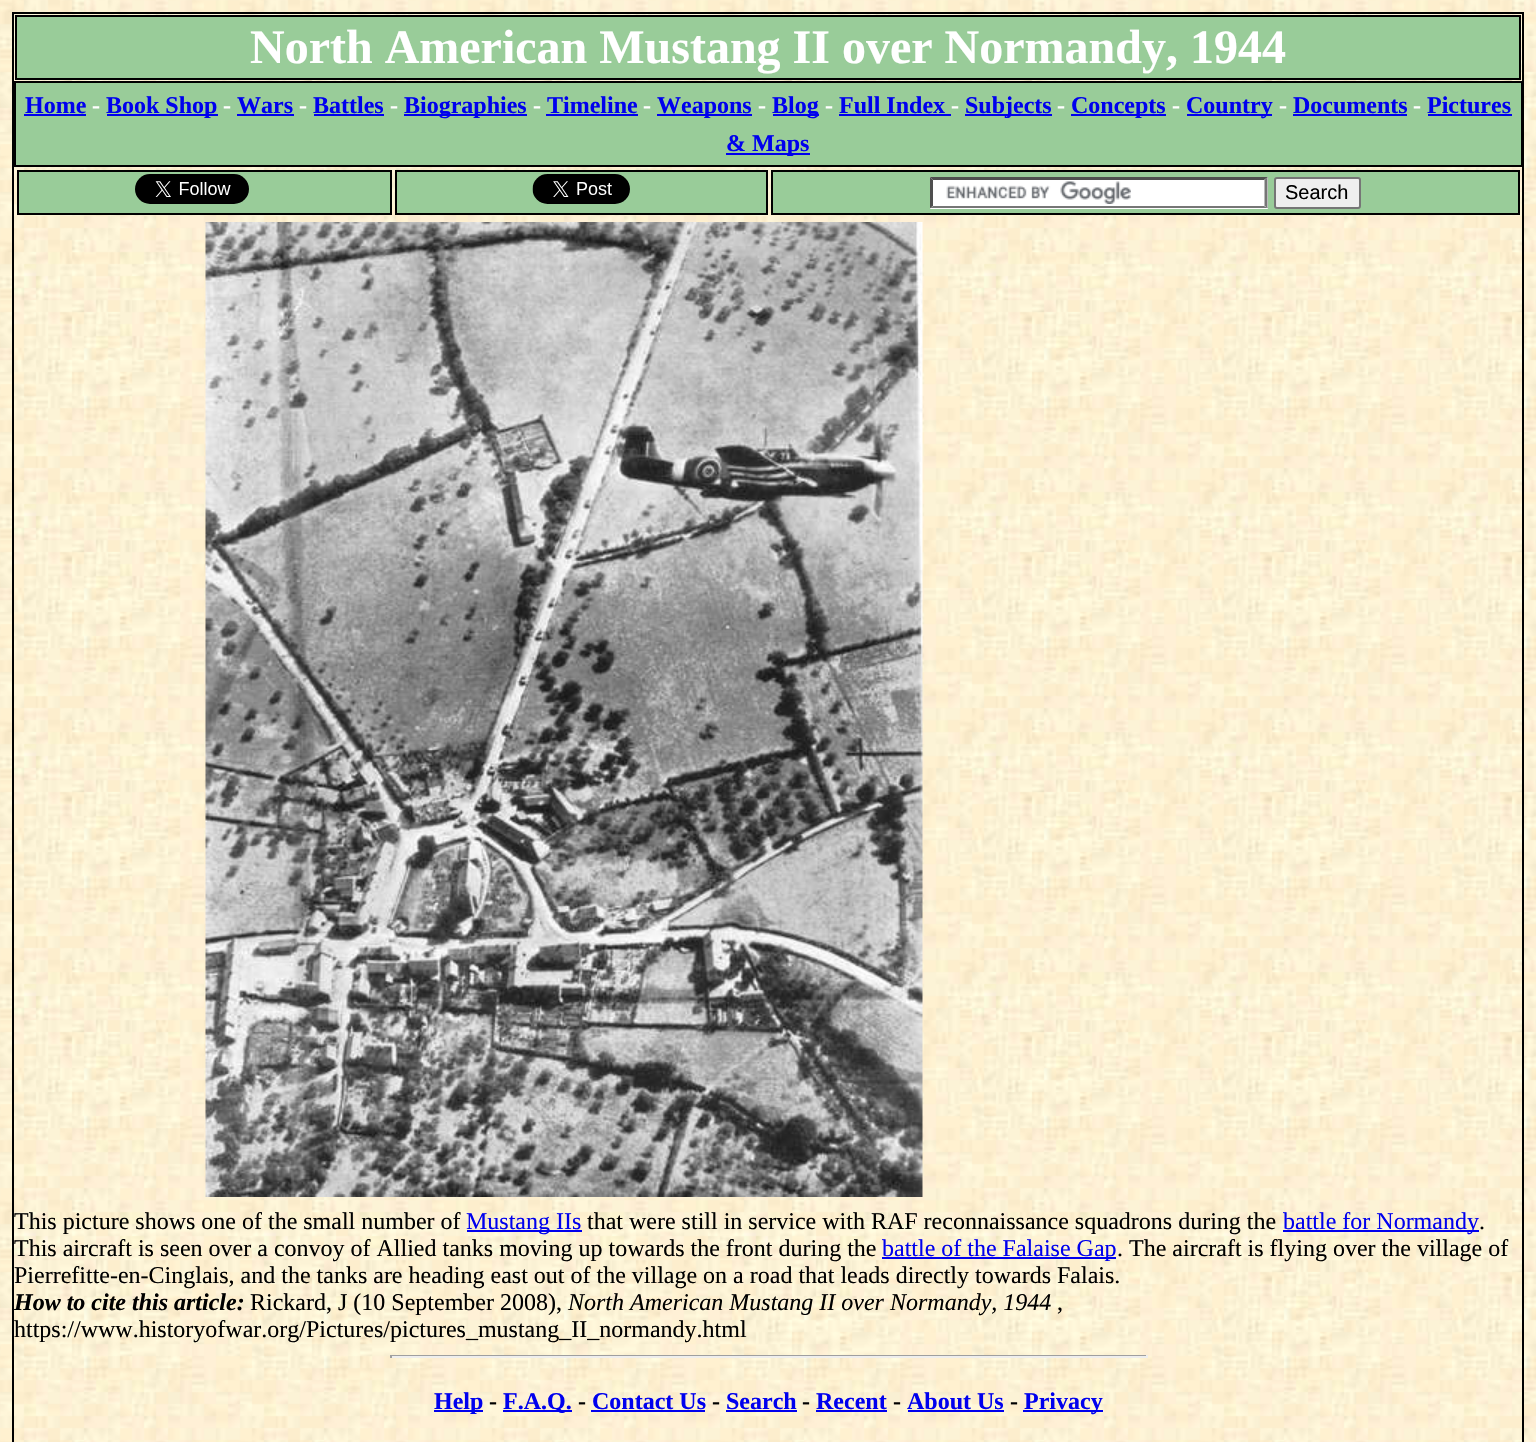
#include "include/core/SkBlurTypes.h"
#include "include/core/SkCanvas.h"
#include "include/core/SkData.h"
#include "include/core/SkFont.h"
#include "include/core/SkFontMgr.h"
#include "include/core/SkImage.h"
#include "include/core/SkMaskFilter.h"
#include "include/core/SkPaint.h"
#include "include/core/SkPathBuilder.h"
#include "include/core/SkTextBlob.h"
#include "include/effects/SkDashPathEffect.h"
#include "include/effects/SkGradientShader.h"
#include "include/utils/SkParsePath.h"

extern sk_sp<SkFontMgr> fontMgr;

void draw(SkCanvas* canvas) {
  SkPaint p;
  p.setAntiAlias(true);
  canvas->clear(SK_ColorWHITE);
  canvas->drawImageRect(SkImages::DeferredFromEncodedData(SkData::MakeFromFileName("images/1.png")), SkRect::MakeLTRB(0, 0, 1536, 1442), SkSamplingOptions());
  p.setStyle(SkPaint::kStroke_Style);
  p.setStrokeWidth(2);
  p.setColor(SK_ColorBLACK);
  canvas->drawRect(SkRect::MakeLTRB(13, 13, 1523, 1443), p);
  p.setStyle(SkPaint::kFill_Style);
  p.setColor(SkColorSetRGB(153, 204, 153));
  canvas->drawRect(SkRect::MakeLTRB(16, 16, 1520, 79), p);
  p.setStyle(SkPaint::kStroke_Style);
  p.setColor(SK_ColorBLACK);
  canvas->drawRect(SkRect::MakeLTRB(16, 16, 1520, 79), p);
  p.setStyle(SkPaint::kFill_Style);
  p.setColor(SkColorSetRGB(153, 204, 153));
  canvas->drawRect(SkRect::MakeLTRB(15, 82, 1522, 166), p);
  p.setStyle(SkPaint::kStroke_Style);
  p.setColor(SK_ColorBLACK);
  canvas->drawRect(SkRect::MakeLTRB(15, 82, 1522, 166), p);
  p.setStyle(SkPaint::kFill_Style);
  p.setColor(SkColorSetRGB(0, 0, 238));
  canvas->drawRect(SkRect::MakeLTRB(24, 114, 86, 116), p);
  canvas->drawRect(SkRect::MakeLTRB(107, 114, 218, 116), p);
  canvas->drawRect(SkRect::MakeLTRB(237, 114, 294, 116), p);
  canvas->drawRect(SkRect::MakeLTRB(314, 114, 384, 116), p);
  canvas->drawRect(SkRect::MakeLTRB(404, 114, 527, 116), p);
  canvas->drawRect(SkRect::MakeLTRB(546, 114, 638, 116), p);
  canvas->drawRect(SkRect::MakeLTRB(657, 114, 752, 116), p);
  canvas->drawRect(SkRect::MakeLTRB(773, 114, 819, 116), p);
  canvas->drawRect(SkRect::MakeLTRB(839, 114, 951, 116), p);
  canvas->drawRect(SkRect::MakeLTRB(965, 114, 1052, 116), p);
  canvas->drawRect(SkRect::MakeLTRB(1071, 114, 1166, 116), p);
  canvas->drawRect(SkRect::MakeLTRB(1187, 114, 1272, 116), p);
  canvas->drawRect(SkRect::MakeLTRB(1293, 114, 1407, 116), p);
  canvas->drawRect(SkRect::MakeLTRB(1428, 114, 1512, 116), p);
  canvas->drawRect(SkRect::MakeLTRB(726, 153, 810, 155), p);
  p.setColor(SkColorSetRGB(153, 204, 153));
  canvas->drawRect(SkRect::MakeLTRB(18, 171, 391, 214), p);
  p.setStyle(SkPaint::kStroke_Style);
  p.setColor(SK_ColorBLACK);
  canvas->drawRect(SkRect::MakeLTRB(18, 171, 391, 214), p);
  canvas->drawImageRect(SkImages::DeferredFromEncodedData(SkData::MakeFromFileName("images/2.png")), SkRect::MakeLTRB(135, 174, 249, 204), SkSamplingOptions());
  p.setStyle(SkPaint::kFill_Style);
  p.setColor(SkColorSetRGB(153, 204, 153));
  canvas->drawRect(SkRect::MakeLTRB(396, 171, 767, 214), p);
  p.setStyle(SkPaint::kStroke_Style);
  p.setColor(SK_ColorBLACK);
  canvas->drawRect(SkRect::MakeLTRB(396, 171, 767, 214), p);
  canvas->drawImageRect(SkImages::DeferredFromEncodedData(SkData::MakeFromFileName("images/3.png")), SkRect::MakeLTRB(532, 174, 630, 204), SkSamplingOptions());
  p.setStyle(SkPaint::kFill_Style);
  p.setColor(SkColorSetRGB(153, 204, 153));
  canvas->drawRect(SkRect::MakeLTRB(772, 171, 1519, 214), p);
  p.setStyle(SkPaint::kStroke_Style);
  p.setColor(SK_ColorBLACK);
  canvas->drawRect(SkRect::MakeLTRB(772, 171, 1519, 214), p);
  p.setStyle(SkPaint::kFill_Style);
  p.setColor(SK_ColorWHITE);
  canvas->drawRect(SkRect::MakeLTRB(930, 177, 1268, 209), p);
  canvas->drawImageRect(SkImages::DeferredFromEncodedData(SkData::MakeFromFileName("images/4.png")), SkRect::MakeLTRB(946, 181, 1131, 204), SkSamplingOptions());
  p.setColor(SkColorSetRGB(79, 79, 79));
  canvas->drawPath(SkPathBuilder().moveTo(930, 177).lineTo(1268, 177).lineTo(1264, 180).lineTo(933, 180).close().detach(), p);
  p.setColor(SkColorSetRGB(118, 118, 118));
  canvas->drawPath(SkPathBuilder().moveTo(1267.5f, 177).lineTo(1267.5f, 208.5f).lineTo(1264.5f, 205.5f).lineTo(1264.5f, 180).close().detach(), p);
  canvas->drawPath(SkPathBuilder().moveTo(1268, 208).lineTo(930, 208).lineTo(933, 206).lineTo(1264, 206).close().detach(), p);
  p.setColor(SkColorSetRGB(79, 79, 79));
  canvas->drawPath(SkPathBuilder().moveTo(930, 208.5f).lineTo(930, 177).lineTo(933, 180).lineTo(933, 205.5f).close().detach(), p);
  p.setColor(SkColorSetRGB(239, 239, 239));
  canvas->drawRoundRect(SkRect::MakeLTRB(1275, 178, 1360, 208), 2, 2, p);
  p.setStyle(SkPaint::kStroke_Style);
  p.setColor(SkColorSetRGB(118, 118, 118));
  canvas->drawRoundRect(SkRect::MakeLTRB(1275, 178, 1360, 208), 2, 2, p);
  canvas->drawImageRect(SkImages::DeferredFromEncodedData(SkData::MakeFromFileName("images/5.png")), SkRect::MakeLTRB(205, 222, 923, 1197), SkSamplingOptions());
  p.setStyle(SkPaint::kFill_Style);
  p.setColor(SkColorSetRGB(0, 0, 238));
  canvas->drawRect(SkRect::MakeLTRB(467, 1230, 582, 1232), p);
  canvas->drawRect(SkRect::MakeLTRB(1283, 1230, 1479, 1232), p);
  canvas->drawRect(SkRect::MakeLTRB(882, 1257, 1116, 1259), p);
  p.setColor(SkColorSetRGB(159, 159, 159));
  canvas->drawRect(SkRect::MakeLTRB(390, 1355, 1148, 1356), p);
  p.setColor(SkColorSetRGB(238, 238, 238));
  canvas->drawRect(SkRect::MakeLTRB(1146, 1355, 1148, 1358), p);
  canvas->drawRect(SkRect::MakeLTRB(390, 1356, 1148, 1358), p);
  p.setColor(SkColorSetRGB(159, 159, 159));
  canvas->drawRect(SkRect::MakeLTRB(390, 1355, 392, 1358), p);
  p.setColor(SkColorSetRGB(0, 0, 238));
  canvas->drawRect(SkRect::MakeLTRB(434, 1410, 483, 1412), p);
  canvas->drawRect(SkRect::MakeLTRB(503, 1410, 572, 1412), p);
  canvas->drawRect(SkRect::MakeLTRB(591, 1410, 705, 1412), p);
  canvas->drawRect(SkRect::MakeLTRB(726, 1410, 797, 1412), p);
  canvas->drawRect(SkRect::MakeLTRB(816, 1410, 887, 1412), p);
  canvas->drawRect(SkRect::MakeLTRB(908, 1410, 1004, 1412), p);
  canvas->drawRect(SkRect::MakeLTRB(1023, 1410, 1103, 1412), p);
  SkFont font1(fontMgr->matchFamilyStyle("Liberation Serif", SkFontStyle::Bold()), 48);
  font1.setSubpixel(true);
  p.setColor(SK_ColorWHITE);
  canvas->drawString("North American Mustang II over Normandy, 1944", 250, 63, font1, p);
  SkFont font2(fontMgr->matchFamilyStyle("Liberation Serif", SkFontStyle::Bold()), 24);
  font2.setSubpixel(true);
  p.setColor(SkColorSetRGB(0, 0, 238));
  canvas->drawString("Home", 25, 113, font2, p);
  p.setColor(SK_ColorWHITE);
  canvas->drawString("-", 92, 113, font2, p);
  p.setColor(SkColorSetRGB(0, 0, 238));
  canvas->drawString("Book Shop", 106, 113, font2, p);
  p.setColor(SK_ColorWHITE);
  canvas->drawString("-", 223, 113, font2, p);
  p.setColor(SkColorSetRGB(0, 0, 238));
  canvas->drawString("Wars", 237, 113, font2, p);
  p.setColor(SK_ColorWHITE);
  canvas->drawString("-", 299, 113, font2, p);
  p.setColor(SkColorSetRGB(0, 0, 238));
  canvas->drawString("Battles", 313, 113, font2, p);
  p.setColor(SK_ColorWHITE);
  canvas->drawString("-", 390, 113, font2, p);
  p.setColor(SkColorSetRGB(0, 0, 238));
  canvas->drawString("Biographies", 404, 113, font2, p);
  p.setColor(SK_ColorWHITE);
  canvas->drawString("-", 533, 113, font2, p);
  p.setColor(SkColorSetRGB(0, 0, 238));
  canvas->drawString("Timeline", 547, 113, font2, p);
  p.setColor(SK_ColorWHITE);
  canvas->drawString("-", 643, 113, font2, p);
  p.setColor(SkColorSetRGB(0, 0, 238));
  canvas->drawString("Weapons", 657, 113, font2, p);
  p.setColor(SK_ColorWHITE);
  canvas->drawString("-", 758, 113, font2, p);
  p.setColor(SkColorSetRGB(0, 0, 238));
  canvas->drawString("Blog", 772, 113, font2, p);
  p.setColor(SK_ColorWHITE);
  canvas->drawString("-", 825, 113, font2, p);
  p.setColor(SkColorSetRGB(0, 0, 238));
  canvas->drawString("Full Index", 839, 113, font2, p);
  p.setColor(SK_ColorWHITE);
  canvas->drawString("-", 951, 113, font2, p);
  p.setColor(SkColorSetRGB(0, 0, 238));
  canvas->drawString("Subjects", 965, 113, font2, p);
  p.setColor(SK_ColorWHITE);
  canvas->drawString("-", 1057, 113, font2, p);
  p.setColor(SkColorSetRGB(0, 0, 238));
  canvas->drawString("Concepts", 1071, 113, font2, p);
  p.setColor(SK_ColorWHITE);
  canvas->drawString("-", 1172, 113, font2, p);
  p.setColor(SkColorSetRGB(0, 0, 238));
  canvas->drawString("Country", 1186, 113, font2, p);
  p.setColor(SK_ColorWHITE);
  canvas->drawString("-", 1279, 113, font2, p);
  p.setColor(SkColorSetRGB(0, 0, 238));
  canvas->drawString("Documents", 1293, 113, font2, p);
  p.setColor(SK_ColorWHITE);
  canvas->drawString("-", 1413, 113, font2, p);
  p.setColor(SkColorSetRGB(0, 0, 238));
  canvas->drawString("Pictures", 1427, 113, font2, p);
  canvas->drawString("& Maps", 726, 151, font2, p);
  SkFont font3(fontMgr->matchFamilyStyle("Liberation Sans", SkFontStyle::Normal()), 20);
  font3.setSubpixel(true);
  p.setColor(SK_ColorBLACK);
  canvas->drawString("Search", 1285, 199, font3, p);
  SkFont font4(fontMgr->matchFamilyStyle("Liberation Serif", SkFontStyle::Normal()), 24);
  font4.setSubpixel(true);
  canvas->drawString("This picture shows one of the small number of", 14, 1229, font4, p);
  p.setColor(SkColorSetRGB(0, 0, 238));
  canvas->drawString("Mustang IIs", 466, 1229, font4, p);
  p.setColor(SK_ColorBLACK);
  canvas->drawString("that were still in service with RAF reconnaissance squadrons during the", 587, 1229, font4, p);
  p.setColor(SkColorSetRGB(0, 0, 238));
  canvas->drawString("battle for Normandy", 1283, 1229, font4, p);
  p.setColor(SK_ColorBLACK);
  canvas->drawString(".", 1479, 1229, font4, p);
  canvas->drawString("This aircraft is seen over a convoy of Allied tanks moving up towards the front during the", 14, 1256, font4, p);
  p.setColor(SkColorSetRGB(0, 0, 238));
  canvas->drawString("battle of the Falaise Gap", 882, 1256, font4, p);
  p.setColor(SK_ColorBLACK);
  canvas->drawString(". The aircraft is flying over the village of", 1117, 1256, font4, p);
  canvas->drawString("Pierrefitte-en-Cinglais, and the tanks are heading east out of the village on a road that leads directly towards Falais.", 14, 1283, font4, p);
  SkFont font5(fontMgr->matchFamilyStyle("Liberation Serif", SkFontStyle::BoldItalic()), 24);
  font5.setSubpixel(true);
  canvas->drawString("How to cite this article:", 14, 1310, font5, p);
  canvas->drawString("Rickard, J (10 September 2008),", 250, 1310, font4, p);
  SkFont font6(fontMgr->matchFamilyStyle("Liberation Serif", SkFontStyle::Italic()), 24);
  font6.setSubpixel(true);
  canvas->drawString("North American Mustang II over Normandy, 1944", 568, 1310, font6, p);
  canvas->drawString(",", 1057, 1310, font4, p);
  canvas->drawString("https://www.historyofwar.org/Pictures/pictures_mustang_II_normandy.html", 14, 1337, font4, p);
  p.setColor(SkColorSetRGB(0, 0, 238));
  canvas->drawString("Help", 434, 1409, font2, p);
  p.setColor(SK_ColorBLACK);
  canvas->drawString("-", 489, 1409, font2, p);
  p.setColor(SkColorSetRGB(0, 0, 238));
  canvas->drawString("F.A.Q.", 503, 1409, font2, p);
  p.setColor(SK_ColorBLACK);
  canvas->drawString("-", 578, 1409, font2, p);
  p.setColor(SkColorSetRGB(0, 0, 238));
  canvas->drawString("Contact Us", 592, 1409, font2, p);
  p.setColor(SK_ColorBLACK);
  canvas->drawString("-", 712, 1409, font2, p);
  p.setColor(SkColorSetRGB(0, 0, 238));
  canvas->drawString("Search", 726, 1409, font2, p);
  p.setColor(SK_ColorBLACK);
  canvas->drawString("-", 802, 1409, font2, p);
  p.setColor(SkColorSetRGB(0, 0, 238));
  canvas->drawString("Recent", 816, 1409, font2, p);
  p.setColor(SK_ColorBLACK);
  canvas->drawString("-", 893, 1409, font2, p);
  p.setColor(SkColorSetRGB(0, 0, 238));
  canvas->drawString("About Us", 907, 1409, font2, p);
  p.setColor(SK_ColorBLACK);
  canvas->drawString("-", 1010, 1409, font2, p);
  p.setColor(SkColorSetRGB(0, 0, 238));
  canvas->drawString("Privacy", 1024, 1409, font2, p);
}
